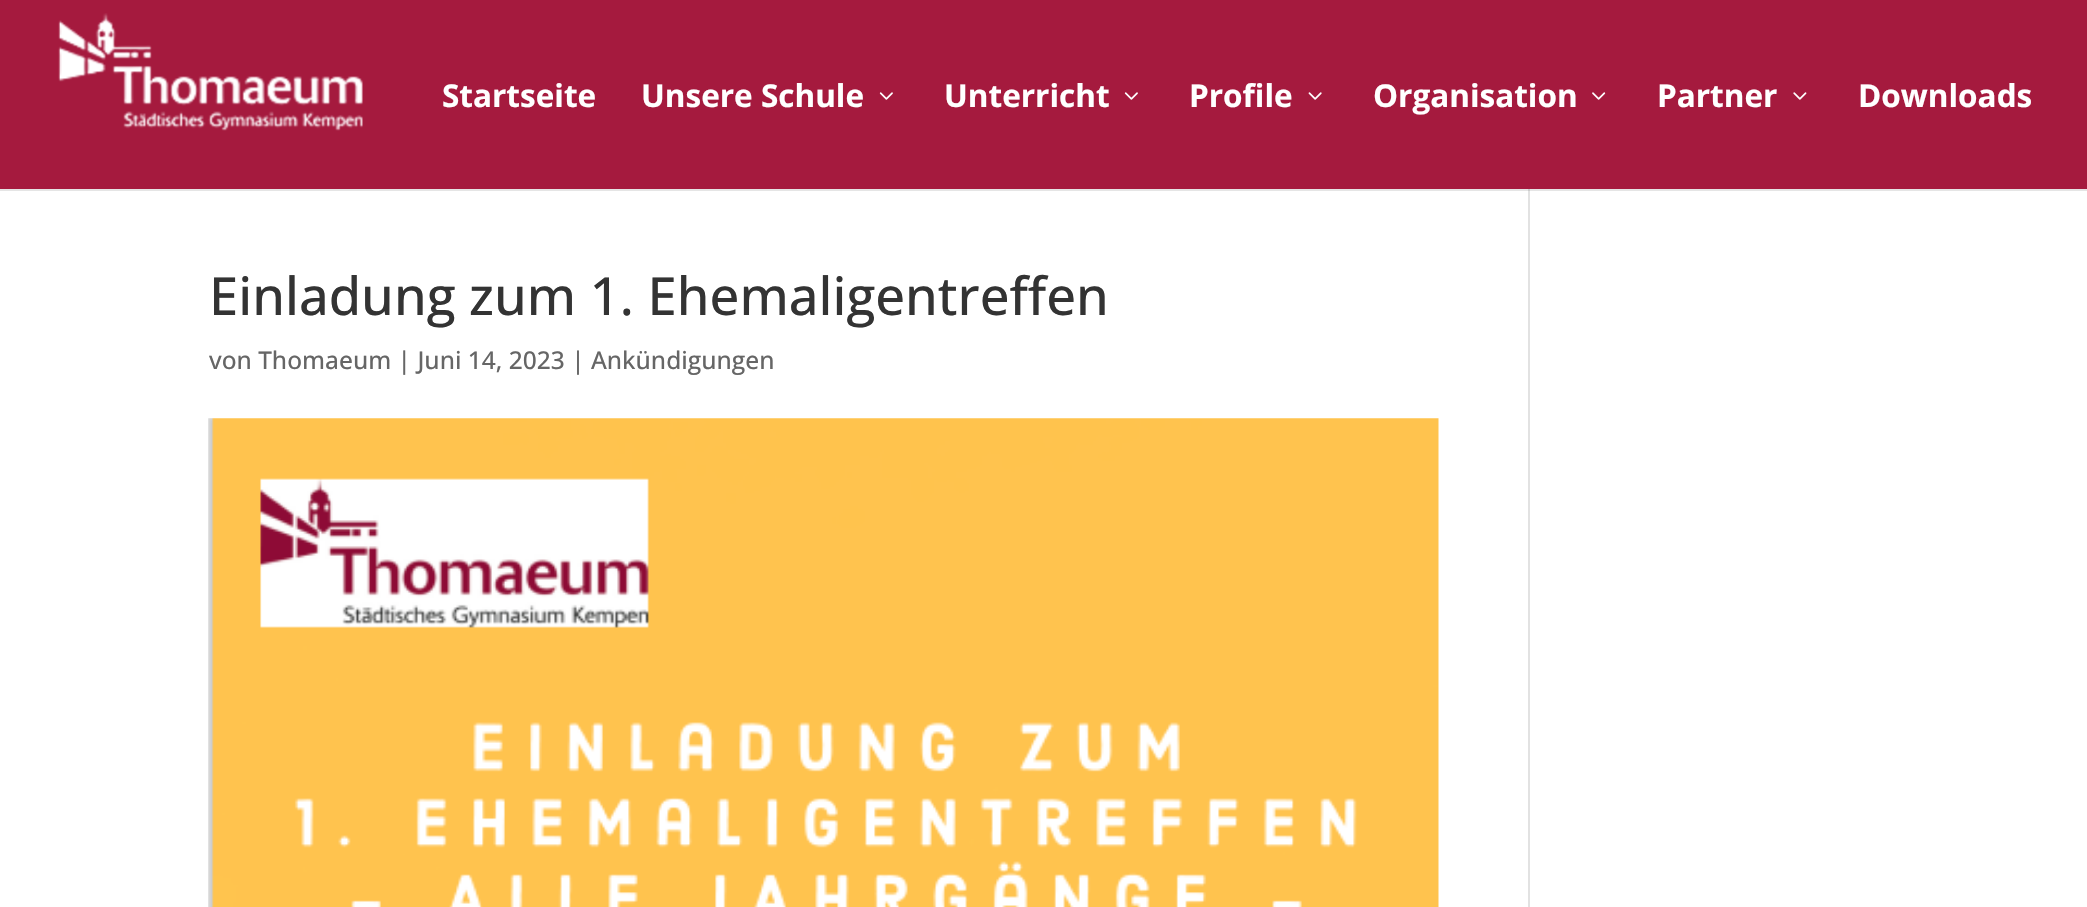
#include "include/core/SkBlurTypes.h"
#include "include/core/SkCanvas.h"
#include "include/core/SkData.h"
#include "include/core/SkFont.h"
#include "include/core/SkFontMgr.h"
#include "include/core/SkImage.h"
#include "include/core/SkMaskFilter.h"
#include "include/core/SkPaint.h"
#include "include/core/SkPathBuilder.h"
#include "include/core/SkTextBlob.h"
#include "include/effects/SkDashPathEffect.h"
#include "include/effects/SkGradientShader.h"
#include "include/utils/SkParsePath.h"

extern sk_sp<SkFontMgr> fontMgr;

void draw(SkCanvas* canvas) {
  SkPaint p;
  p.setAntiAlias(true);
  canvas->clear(SK_ColorWHITE);
  p.setColor(SkColorSetRGB(226, 226, 226));
  canvas->drawRect(SkRect::MakeLTRB(1528, 189, 1530, 907), p);
  p.setColor(SkColorSetARGB(26, 0, 0, 0));
  canvas->drawPath(SkPathBuilder().moveTo(0, 189).lineTo(0, 191).lineTo(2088, 191).lineTo(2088, 2).lineTo(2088, 189).close().detach(), p);
  p.setColor(SkColorSetRGB(165, 26, 62));
  canvas->drawRect(SkRect::MakeLTRB(0, 0, 2087, 189), p);
  canvas->drawImageRect(SkImages::DeferredFromEncodedData(SkData::MakeFromFileName("images/1.png")), SkRect::MakeLTRB(58, 13, 363, 131), SkSamplingOptions());
  canvas->drawImageRect(SkImages::DeferredFromEncodedData(SkData::MakeFromFileName("images/2.png")), SkRect::MakeLTRB(879, 92, 893, 100), SkSamplingOptions());
  canvas->drawImageRect(SkImages::DeferredFromEncodedData(SkData::MakeFromFileName("images/2.png")), SkRect::MakeLTRB(1124, 92, 1138, 100), SkSamplingOptions());
  canvas->drawImageRect(SkImages::DeferredFromEncodedData(SkData::MakeFromFileName("images/3.png")), SkRect::MakeLTRB(1308, 92, 1322, 100), SkSamplingOptions());
  canvas->drawImageRect(SkImages::DeferredFromEncodedData(SkData::MakeFromFileName("images/4.png")), SkRect::MakeLTRB(1592, 92, 1606, 100), SkSamplingOptions());
  canvas->drawImageRect(SkImages::DeferredFromEncodedData(SkData::MakeFromFileName("images/5.png")), SkRect::MakeLTRB(1793, 92, 1807, 100), SkSamplingOptions());
  canvas->drawImageRect(SkImages::DeferredFromEncodedData(SkData::MakeFromFileName("images/6.png")), SkRect::MakeLTRB(208, 418, 1439, 907), SkSamplingOptions());
  SkFont font1(fontMgr->matchFamilyStyle("Open Sans", SkFontStyle::Bold()), 31.5f);
  font1.setSubpixel(true);
  p.setColor(SK_ColorWHITE);
  canvas->drawString("Startseite", 442, 107, font1, p);
  canvas->drawString("Unsere Schule", 641, 107, font1, p);
  canvas->drawString("Unterricht", 944, 107, font1, p);
  canvas->drawString("Profile", 1189, 107, font1, p);
  canvas->drawString("Organisation", 1373, 107, font1, p);
  canvas->drawString("Partner", 1657, 107, font1, p);
  canvas->drawString("Downloads", 1858, 107, font1, p);
  SkFont font2(fontMgr->matchFamilyStyle("Open Sans", SkFontStyle(500, SkFontStyle::kNormal_Width, SkFontStyle::kUpright_Slant)), 52.5f);
  font2.setSubpixel(true);
  p.setColor(SkColorSetRGB(51, 51, 51));
  canvas->drawString("Einladung zum 1. Ehemaligentreffen", 209, 315, font2, p);
  SkFont font3(fontMgr->matchFamilyStyle("Open Sans", SkFontStyle(500, SkFontStyle::kNormal_Width, SkFontStyle::kUpright_Slant)), 24.5f);
  font3.setSubpixel(true);
  p.setColor(SkColorSetRGB(102, 102, 102));
  canvas->drawString("von Thomaeum | Juni 14, 2023 | Ankündigungen", 209, 369, font3, p);
}
